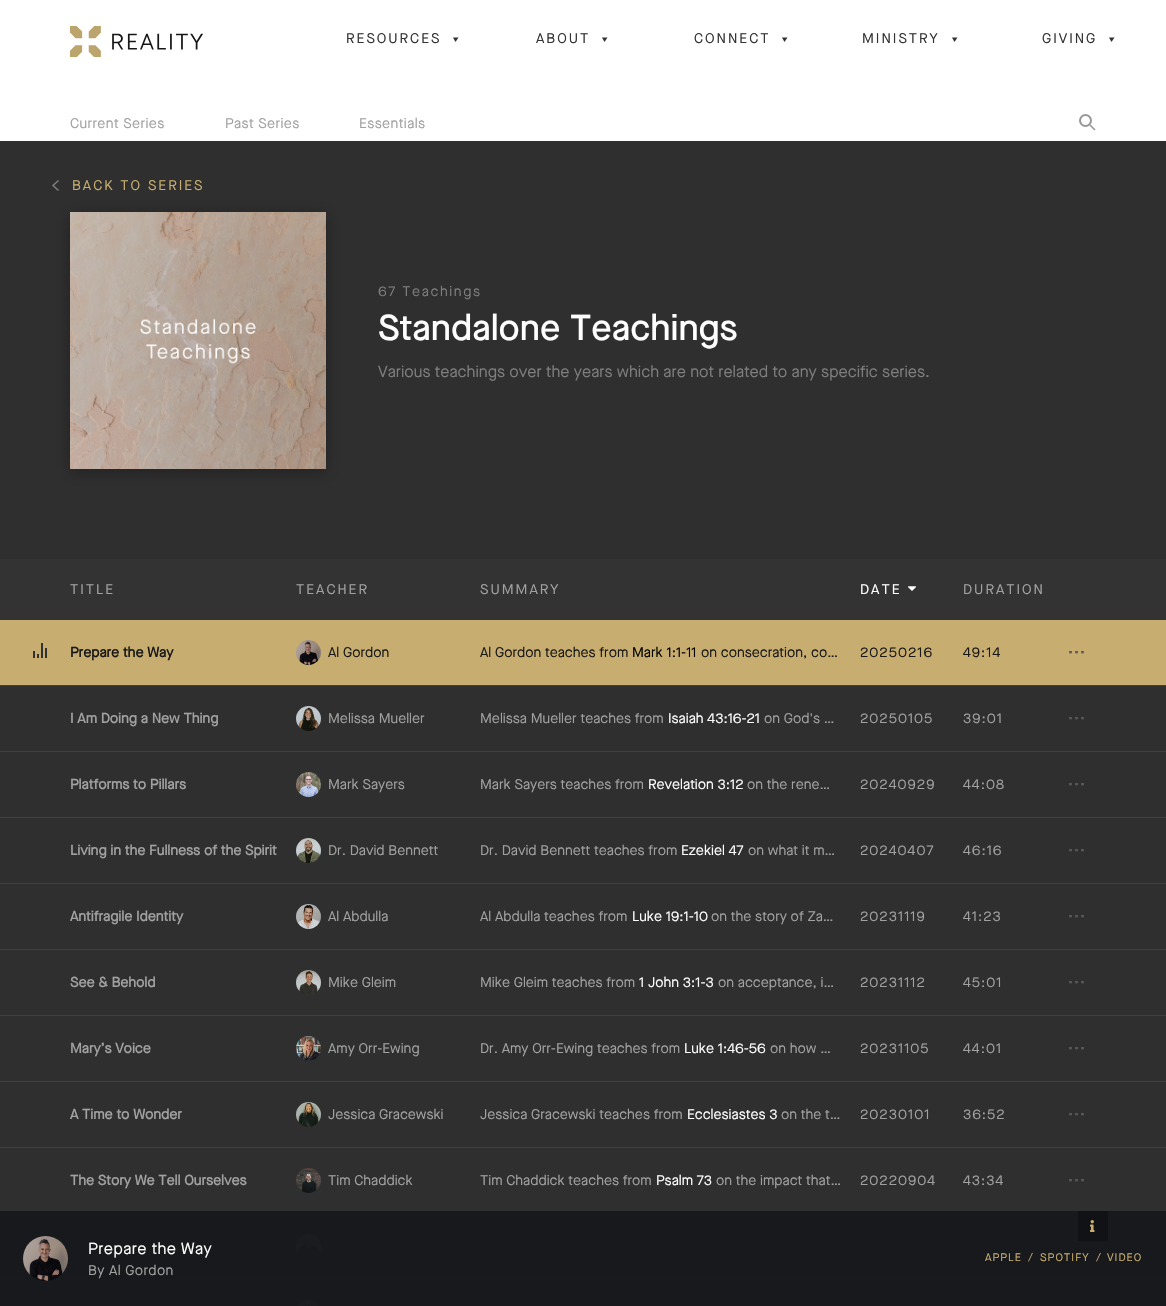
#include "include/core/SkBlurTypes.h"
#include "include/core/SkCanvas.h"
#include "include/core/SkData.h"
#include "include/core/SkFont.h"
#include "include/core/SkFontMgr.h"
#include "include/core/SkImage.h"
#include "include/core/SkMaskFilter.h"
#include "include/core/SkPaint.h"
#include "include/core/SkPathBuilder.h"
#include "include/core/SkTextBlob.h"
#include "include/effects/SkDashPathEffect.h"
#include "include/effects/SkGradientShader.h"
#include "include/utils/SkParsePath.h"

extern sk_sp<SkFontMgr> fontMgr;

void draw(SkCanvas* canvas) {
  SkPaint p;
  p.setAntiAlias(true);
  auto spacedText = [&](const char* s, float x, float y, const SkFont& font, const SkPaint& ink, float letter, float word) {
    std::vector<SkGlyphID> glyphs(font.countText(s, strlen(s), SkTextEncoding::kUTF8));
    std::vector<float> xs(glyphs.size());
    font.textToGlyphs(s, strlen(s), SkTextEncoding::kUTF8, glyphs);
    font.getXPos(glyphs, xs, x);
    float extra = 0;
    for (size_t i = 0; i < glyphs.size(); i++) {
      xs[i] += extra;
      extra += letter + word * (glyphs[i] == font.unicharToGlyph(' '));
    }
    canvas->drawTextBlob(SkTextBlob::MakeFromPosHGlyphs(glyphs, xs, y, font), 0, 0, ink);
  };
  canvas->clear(SK_ColorWHITE);
  canvas->drawImageRect(SkImages::DeferredFromEncodedData(SkData::MakeFromFileName("images/1.png")), SkRect::MakeLTRB(70, 26, 203, 58), SkSamplingOptions());
  p.setColor(SkColorSetRGB(51, 51, 51));
  canvas->drawPath(SkPathBuilder().moveTo(458.5f, 37.5f).lineTo(455.5f, 42).lineTo(453, 37.5f).close().detach(), p);
  canvas->drawPath(SkPathBuilder().moveTo(607.5f, 37.5f).lineTo(604.5f, 42).lineTo(602, 37.5f).close().detach(), p);
  canvas->drawPath(SkPathBuilder().moveTo(787.5f, 37.5f).lineTo(784.5f, 42).lineTo(782, 37.5f).close().detach(), p);
  canvas->drawPath(SkPathBuilder().moveTo(957.5f, 37.5f).lineTo(954.5f, 42).lineTo(952, 37.5f).close().detach(), p);
  canvas->drawPath(SkPathBuilder().moveTo(1114.5f, 37.5f).lineTo(1111.5f, 42).lineTo(1109, 37.5f).close().detach(), p);
  p.setStyle(SkPaint::kStroke_Style);
  p.setStrokeWidth(2);
  p.setColor(SkColorSetRGB(151, 151, 151));
  canvas->drawCircle(1085.5f, 120.5f, 5.5f, p);
  p.setStrokeWidth(1.5f);
  p.setStrokeCap(SkPaint::kSquare_Cap);
  canvas->drawPath(SkPathBuilder().moveTo(1094.5f, 129.5f).lineTo(1090.5f, 125.5f).detach(), p);
  p.setStyle(SkPaint::kFill_Style);
  p.setColor(SkColorSetRGB(47, 47, 47));
  canvas->drawRect(SkRect::MakeLTRB(0, 141, 1166, 559), p);
  p.setColor(SkColorSetARGB(77, 0, 0, 0));
  p.setMaskFilter(SkMaskFilter::MakeBlur(kNormal_SkBlurStyle, 7.5f));
  canvas->drawRect(SkRect::MakeLTRB(70, 215, 326, 472), p);
  p.setMaskFilter(nullptr);
  p.setStyle(SkPaint::kStroke_Style);
  p.setColor(SkColorSetRGB(125, 125, 125));
  canvas->drawPath(SkPathBuilder().moveTo(58, 190).lineTo(53, 185.5f).lineTo(58, 181).detach(), p);
  canvas->drawImageRect(SkImages::DeferredFromEncodedData(SkData::MakeFromFileName("images/2.png")), SkRect::MakeLTRB(70, 212, 326, 469), SkSamplingOptions());
  p.setStyle(SkPaint::kFill_Style);
  p.setColor(SkColorSetRGB(51, 51, 51));
  canvas->drawRect(SkRect::MakeLTRB(0, 559, 1166, 620), p);
  canvas->drawImageRect(SkImages::DeferredFromEncodedData(SkData::MakeFromFileName("images/3.png")), SkRect::MakeLTRB(908, 586, 916, 591), SkSamplingOptions());
  p.setColor(SkColorSetRGB(199, 173, 111));
  canvas->drawRect(SkRect::MakeLTRB(0, 620, 1166, 685), p);
  p.setColor(SkColorSetRGB(64, 64, 64));
  canvas->drawRect(SkRect::MakeLTRB(0, 685, 1166, 686), p);
  p.setColor(SkColorSetRGB(51, 51, 51));
  canvas->drawRect(SkRect::MakeLTRB(33, 651, 35, 658), p);
  canvas->drawRect(SkRect::MakeLTRB(37, 654, 39, 658), p);
  canvas->drawRect(SkRect::MakeLTRB(41, 643, 43, 658), p);
  canvas->drawRect(SkRect::MakeLTRB(45, 648, 47, 658), p);
  canvas->drawImageRect(SkImages::DeferredFromEncodedData(SkData::MakeFromFileName("images/4.png")), SkRect::MakeLTRB(296, 640, 321, 665), SkSamplingOptions());
  canvas->save();
  canvas->clipRect(SkRect::MakeLTRB(1069, 651, 1084, 654));
  p.setColor(SkColorSetRGB(89, 89, 89));
  canvas->drawCircle(1070.5f, 652, 1.5f, p);
  canvas->drawCircle(1076.5f, 652, 1.5f, p);
  canvas->drawCircle(1082.5f, 652, 1.5f, p);
  canvas->restore();
  p.setColor(SkColorSetRGB(47, 47, 47));
  canvas->drawRect(SkRect::MakeLTRB(0, 686, 1166, 751), p);
  p.setColor(SkColorSetRGB(64, 64, 64));
  canvas->drawRect(SkRect::MakeLTRB(0, 751, 1166, 752), p);
  canvas->drawImageRect(SkImages::DeferredFromEncodedData(SkData::MakeFromFileName("images/5.png")), SkRect::MakeLTRB(296, 706, 321, 731), SkSamplingOptions());
  canvas->save();
  canvas->clipRect(SkRect::MakeLTRB(1069, 717, 1084, 720));
  p.setColor(SkColorSetRGB(89, 89, 89));
  canvas->drawCircle(1070.5f, 718, 1.5f, p);
  canvas->drawCircle(1076.5f, 718, 1.5f, p);
  canvas->drawCircle(1082.5f, 718, 1.5f, p);
  canvas->restore();
  p.setColor(SkColorSetRGB(47, 47, 47));
  canvas->drawRect(SkRect::MakeLTRB(0, 752, 1166, 817), p);
  p.setColor(SkColorSetRGB(64, 64, 64));
  canvas->drawRect(SkRect::MakeLTRB(0, 817, 1166, 818), p);
  canvas->drawImageRect(SkImages::DeferredFromEncodedData(SkData::MakeFromFileName("images/6.png")), SkRect::MakeLTRB(296, 772, 321, 797), SkSamplingOptions());
  canvas->save();
  canvas->clipRect(SkRect::MakeLTRB(1069, 783, 1084, 786));
  p.setColor(SkColorSetRGB(89, 89, 89));
  canvas->drawCircle(1070.5f, 784, 1.5f, p);
  canvas->drawCircle(1076.5f, 784, 1.5f, p);
  canvas->drawCircle(1082.5f, 784, 1.5f, p);
  canvas->restore();
  p.setColor(SkColorSetRGB(47, 47, 47));
  canvas->drawRect(SkRect::MakeLTRB(0, 818, 1166, 883), p);
  p.setColor(SkColorSetRGB(64, 64, 64));
  canvas->drawRect(SkRect::MakeLTRB(0, 883, 1166, 884), p);
  canvas->drawImageRect(SkImages::DeferredFromEncodedData(SkData::MakeFromFileName("images/7.png")), SkRect::MakeLTRB(296, 838, 321, 863), SkSamplingOptions());
  canvas->save();
  canvas->clipRect(SkRect::MakeLTRB(1069, 849, 1084, 852));
  p.setColor(SkColorSetRGB(89, 89, 89));
  canvas->drawCircle(1070.5f, 850, 1.5f, p);
  canvas->drawCircle(1076.5f, 850, 1.5f, p);
  canvas->drawCircle(1082.5f, 850, 1.5f, p);
  canvas->restore();
  p.setColor(SkColorSetRGB(47, 47, 47));
  canvas->drawRect(SkRect::MakeLTRB(0, 884, 1166, 949), p);
  p.setColor(SkColorSetRGB(64, 64, 64));
  canvas->drawRect(SkRect::MakeLTRB(0, 949, 1166, 950), p);
  canvas->drawImageRect(SkImages::DeferredFromEncodedData(SkData::MakeFromFileName("images/8.png")), SkRect::MakeLTRB(296, 904, 321, 929), SkSamplingOptions());
  canvas->save();
  canvas->clipRect(SkRect::MakeLTRB(1069, 915, 1084, 918));
  p.setColor(SkColorSetRGB(89, 89, 89));
  canvas->drawCircle(1070.5f, 916, 1.5f, p);
  canvas->drawCircle(1076.5f, 916, 1.5f, p);
  canvas->drawCircle(1082.5f, 916, 1.5f, p);
  canvas->restore();
  p.setColor(SkColorSetRGB(47, 47, 47));
  canvas->drawRect(SkRect::MakeLTRB(0, 950, 1166, 1015), p);
  p.setColor(SkColorSetRGB(64, 64, 64));
  canvas->drawRect(SkRect::MakeLTRB(0, 1015, 1166, 1016), p);
  canvas->drawImageRect(SkImages::DeferredFromEncodedData(SkData::MakeFromFileName("images/9.png")), SkRect::MakeLTRB(296, 970, 321, 995), SkSamplingOptions());
  canvas->save();
  canvas->clipRect(SkRect::MakeLTRB(1069, 981, 1084, 984));
  p.setColor(SkColorSetRGB(89, 89, 89));
  canvas->drawCircle(1070.5f, 982, 1.5f, p);
  canvas->drawCircle(1076.5f, 982, 1.5f, p);
  canvas->drawCircle(1082.5f, 982, 1.5f, p);
  canvas->restore();
  p.setColor(SkColorSetRGB(47, 47, 47));
  canvas->drawRect(SkRect::MakeLTRB(0, 1016, 1166, 1081), p);
  p.setColor(SkColorSetRGB(64, 64, 64));
  canvas->drawRect(SkRect::MakeLTRB(0, 1081, 1166, 1082), p);
  canvas->drawImageRect(SkImages::DeferredFromEncodedData(SkData::MakeFromFileName("images/10.png")), SkRect::MakeLTRB(296, 1036, 321, 1061), SkSamplingOptions());
  canvas->save();
  canvas->clipRect(SkRect::MakeLTRB(1069, 1047, 1084, 1050));
  p.setColor(SkColorSetRGB(89, 89, 89));
  canvas->drawCircle(1070.5f, 1048, 1.5f, p);
  canvas->drawCircle(1076.5f, 1048, 1.5f, p);
  canvas->drawCircle(1082.5f, 1048, 1.5f, p);
  canvas->restore();
  p.setColor(SkColorSetRGB(47, 47, 47));
  canvas->drawRect(SkRect::MakeLTRB(0, 1082, 1166, 1147), p);
  p.setColor(SkColorSetRGB(64, 64, 64));
  canvas->drawRect(SkRect::MakeLTRB(0, 1147, 1166, 1148), p);
  canvas->drawImageRect(SkImages::DeferredFromEncodedData(SkData::MakeFromFileName("images/11.png")), SkRect::MakeLTRB(296, 1102, 321, 1127), SkSamplingOptions());
  canvas->save();
  canvas->clipRect(SkRect::MakeLTRB(1069, 1113, 1084, 1116));
  p.setColor(SkColorSetRGB(89, 89, 89));
  canvas->drawCircle(1070.5f, 1114, 1.5f, p);
  canvas->drawCircle(1076.5f, 1114, 1.5f, p);
  canvas->drawCircle(1082.5f, 1114, 1.5f, p);
  canvas->restore();
  p.setColor(SkColorSetRGB(47, 47, 47));
  canvas->drawRect(SkRect::MakeLTRB(0, 1148, 1166, 1211), p);
  p.setColor(SkColorSetRGB(23, 25, 29));
  canvas->drawRect(SkRect::MakeLTRB(0, 1211, 1166, 1213), p);
  p.setColor(SkColorSetRGB(24, 26, 30));
  canvas->drawRect(SkRect::MakeLTRB(0, 1213, 1166, 1214), p);
  canvas->drawImageRect(SkImages::DeferredFromEncodedData(SkData::MakeFromFileName("images/12.png")), SkRect::MakeLTRB(296, 1168, 321, 1193), SkSamplingOptions());
  canvas->save();
  canvas->clipRect(SkRect::MakeLTRB(1069, 1179, 1084, 1182));
  p.setColor(SkColorSetRGB(89, 89, 89));
  canvas->drawCircle(1070.5f, 1180, 1.5f, p);
  canvas->drawCircle(1076.5f, 1180, 1.5f, p);
  canvas->drawCircle(1082.5f, 1180, 1.5f, p);
  canvas->restore();
  p.setColor(SkColorSetRGB(23, 25, 29));
  canvas->drawRect(SkRect::MakeLTRB(0, 1214, 1166, 1279), p);
  p.setColor(SkColorSetRGB(24, 26, 30));
  canvas->drawRect(SkRect::MakeLTRB(0, 1279, 1166, 1280), p);
  canvas->drawImageRect(SkImages::DeferredFromEncodedData(SkData::MakeFromFileName("images/13.png")), SkRect::MakeLTRB(296, 1234, 321, 1259), SkSamplingOptions());
  p.setColor(SkColorSetRGB(23, 25, 29));
  canvas->drawRect(SkRect::MakeLTRB(0, 1280, 1166, 1306), p);
  canvas->drawImageRect(SkImages::DeferredFromEncodedData(SkData::MakeFromFileName("images/14.png")), SkRect::MakeLTRB(298, 1300, 319, 1306), SkSamplingOptions());
  p.setColor(SkColorSetRGB(16, 18, 21));
  canvas->drawRect(SkRect::MakeLTRB(1078, 1211, 1108, 1241), p);
  canvas->drawImageRect(SkImages::DeferredFromEncodedData(SkData::MakeFromFileName("images/15.png")), SkRect::MakeLTRB(1090, 1220, 1095, 1232), SkSamplingOptions());
  canvas->drawImageRect(SkImages::DeferredFromEncodedData(SkData::MakeFromFileName("images/16.png")), SkRect::MakeLTRB(23, 1236, 68, 1281), SkSamplingOptions());
  SkFont font1(fontMgr->matchFamilyStyle("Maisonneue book", SkFontStyle::Normal()), 14);
  font1.setSubpixel(true);
  p.setColor(SkColorSetRGB(51, 51, 51));
  spacedText("RESOURCES", 346, 43, font1, p, 2, 0);
  spacedText("ABOUT", 536, 43, font1, p, 2, 0);
  spacedText("CONNECT", 694, 43, font1, p, 2, 0);
  spacedText("MINISTRY", 862, 43, font1, p, 2, 0);
  spacedText("GIVING", 1042, 43, font1, p, 2, 0);
  p.setColor(SkColorSetRGB(161, 161, 161));
  spacedText("Current Series", 70, 128, font1, p, 0.4f, 0);
  spacedText("Past Series", 225, 128, font1, p, 0.4f, 0);
  spacedText("Essentials", 359, 128, font1, p, 0.4f, 0);
  p.setColor(SkColorSetRGB(199, 173, 111));
  spacedText("BACK TO SERIES", 72, 190, font1, p, 2, 0);
  p.setColor(SkColorSetRGB(125, 125, 125));
  spacedText("67 Teachings", 378, 296, font1, p, 1.6f, 0);
  SkFont font2(fontMgr->matchFamilyStyle("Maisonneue", SkFontStyle(500, SkFontStyle::kNormal_Width, SkFontStyle::kUpright_Slant)), 36);
  font2.setSubpixel(true);
  p.setColor(SK_ColorWHITE);
  canvas->drawString("Standalone Teachings", 378, 340, font2, p);
  SkFont font3(fontMgr->matchFamilyStyle("Maisonneue book", SkFontStyle::Normal()), 16);
  font3.setSubpixel(true);
  p.setColor(SkColorSetRGB(125, 125, 125));
  canvas->drawString("Various teachings over the years which are not related to any specific series.", 378, 377, font3, p);
  p.setColor(SkColorSetRGB(161, 161, 161));
  spacedText("TITLE", 70, 594, font1, p, 2, 0);
  spacedText("TEACHER", 296, 594, font1, p, 2, 0);
  spacedText("SUMMARY", 480, 594, font1, p, 2, 0);
  p.setColor(SK_ColorWHITE);
  spacedText("DATE", 860, 594, font1, p, 2, 0);
  p.setColor(SkColorSetRGB(161, 161, 161));
  spacedText("DURATION", 963, 594, font1, p, 2, 0);
  SkFont font4(fontMgr->matchFamilyStyle("Maisonneue book", SkFontStyle::Bold()), 14);
  font4.setSubpixel(true);
  p.setColor(SkColorSetRGB(24, 24, 24));
  canvas->drawString("Prepare the Way", 70, 657, font4, p);
  canvas->drawString("Al Gordon", 328, 657, font1, p);
  canvas->drawString("Al Gordon teaches from", 480, 657, font1, p);
  p.setColor(SK_ColorBLACK);
  canvas->drawString("Mark 1:1-11", 632, 657, font1, p);
  p.setColor(SkColorSetRGB(24, 24, 24));
  canvas->drawString("on consecration, co…", 701, 657, font1, p);
  spacedText("20250216", 860, 657, font1, p, 1, 0);
  spacedText("49:14", 963, 657, font1, p, 1, 0);
  p.setColor(SkColorSetRGB(161, 161, 161));
  canvas->drawString("I Am Doing a New Thing", 70, 723, font4, p);
  canvas->drawString("Melissa Mueller", 328, 723, font1, p);
  canvas->drawString("Melissa Mueller teaches from", 480, 723, font1, p);
  p.setColor(SK_ColorWHITE);
  canvas->drawString("Isaiah 43:16-21", 668, 723, font1, p);
  p.setColor(SkColorSetRGB(161, 161, 161));
  canvas->drawString("on God's …", 764, 723, font1, p);
  spacedText("20250105", 860, 723, font1, p, 1, 0);
  spacedText("39:01", 963, 723, font1, p, 1, 0);
  canvas->drawString("Platforms to Pillars", 70, 789, font4, p);
  canvas->drawString("Mark Sayers", 328, 789, font1, p);
  canvas->drawString("Mark Sayers teaches from", 480, 789, font1, p);
  p.setColor(SK_ColorWHITE);
  canvas->drawString("Revelation 3:12", 648, 789, font1, p);
  p.setColor(SkColorSetRGB(161, 161, 161));
  canvas->drawString("on the rene…", 747, 789, font1, p);
  spacedText("20240929", 860, 789, font1, p, 1, 0);
  spacedText("44:08", 963, 789, font1, p, 1, 0);
  canvas->drawString("Living in the Fullness of the Spirit", 70, 855, font4, p);
  canvas->drawString("Dr. David Bennett", 328, 855, font1, p);
  canvas->drawString("Dr. David Bennett teaches from", 480, 855, font1, p);
  p.setColor(SK_ColorWHITE);
  canvas->drawString("Ezekiel 47", 681, 855, font1, p);
  p.setColor(SkColorSetRGB(161, 161, 161));
  canvas->drawString("on what it m…", 748, 855, font1, p);
  spacedText("20240407", 860, 855, font1, p, 1, 0);
  spacedText("46:16", 963, 855, font1, p, 1, 0);
  canvas->drawString("Antifragile Identity", 70, 921, font4, p);
  canvas->drawString("Al Abdulla", 328, 921, font1, p);
  canvas->drawString("Al Abdulla teaches from", 480, 921, font1, p);
  p.setColor(SK_ColorWHITE);
  canvas->drawString("Luke 19:1-10", 632, 921, font1, p);
  p.setColor(SkColorSetRGB(161, 161, 161));
  canvas->drawString("on the story of Za…", 711, 921, font1, p);
  spacedText("20231119", 860, 921, font1, p, 1, 0);
  spacedText("41:23", 963, 921, font1, p, 1, 0);
  canvas->drawString("See & Behold", 70, 987, font4, p);
  canvas->drawString("Mike Gleim", 328, 987, font1, p);
  canvas->drawString("Mike Gleim teaches from", 480, 987, font1, p);
  p.setColor(SK_ColorWHITE);
  canvas->drawString("1 John 3:1-3", 639, 987, font1, p);
  p.setColor(SkColorSetRGB(161, 161, 161));
  canvas->drawString("on acceptance, i…", 718, 987, font1, p);
  spacedText("20231112", 860, 987, font1, p, 1, 0);
  spacedText("45:01", 963, 987, font1, p, 1, 0);
  canvas->drawString("Mary’s Voice", 70, 1053, font4, p);
  canvas->drawString("Amy Orr-Ewing", 328, 1053, font1, p);
  canvas->drawString("Dr. Amy Orr-Ewing teaches from", 480, 1053, font1, p);
  p.setColor(SK_ColorWHITE);
  canvas->drawString("Luke 1:46-56", 684, 1053, font1, p);
  p.setColor(SkColorSetRGB(161, 161, 161));
  canvas->drawString("on how …", 770, 1053, font1, p);
  spacedText("20231105", 860, 1053, font1, p, 1, 0);
  spacedText("44:01", 963, 1053, font1, p, 1, 0);
  canvas->drawString("A Time to Wonder", 70, 1119, font4, p);
  canvas->drawString("Jessica Gracewski", 328, 1119, font1, p);
  canvas->drawString("Jessica Gracewski teaches from", 480, 1119, font1, p);
  p.setColor(SK_ColorWHITE);
  canvas->drawString("Ecclesiastes 3", 687, 1119, font1, p);
  p.setColor(SkColorSetRGB(161, 161, 161));
  canvas->drawString("on the t…", 781, 1119, font1, p);
  spacedText("20230101", 860, 1119, font1, p, 1, 0);
  spacedText("36:52", 963, 1119, font1, p, 1, 0);
  canvas->drawString("The Story We Tell Ourselves", 70, 1185, font4, p);
  canvas->drawString("Tim Chaddick", 328, 1185, font1, p);
  canvas->drawString("Tim Chaddick teaches from", 480, 1185, font1, p);
  p.setColor(SK_ColorWHITE);
  canvas->drawString("Psalm 73", 656, 1185, font1, p);
  p.setColor(SkColorSetRGB(161, 161, 161));
  canvas->drawString("on the impact that…", 716, 1185, font1, p);
  spacedText("20220904", 860, 1185, font1, p, 1, 0);
  spacedText("43:34", 963, 1185, font1, p, 1, 0);
  p.setColor(SK_ColorWHITE);
  spacedText("Prepare the Way", 88, 1254, font3, p, 0.4f, 0);
  p.setColor(SkColorSetRGB(161, 161, 161));
  spacedText("By Al Gordon", 88, 1275, font1, p, 0.4f, 0);
  SkFont font5(fontMgr->matchFamilyStyle("Maisonneue book", SkFontStyle::Normal()), 11);
  font5.setSubpixel(true);
  p.setColor(SkColorSetRGB(199, 173, 111));
  spacedText("APPLE", 985, 1261, font5, p, 1, 0);
  spacedText("/", 1028, 1261, font5, p, 1, 0);
  spacedText("SPOTIFY", 1040, 1261, font5, p, 1, 0);
  spacedText("/", 1096, 1261, font5, p, 1, 0);
  spacedText("VIDEO", 1107, 1261, font5, p, 1, 0);
}
